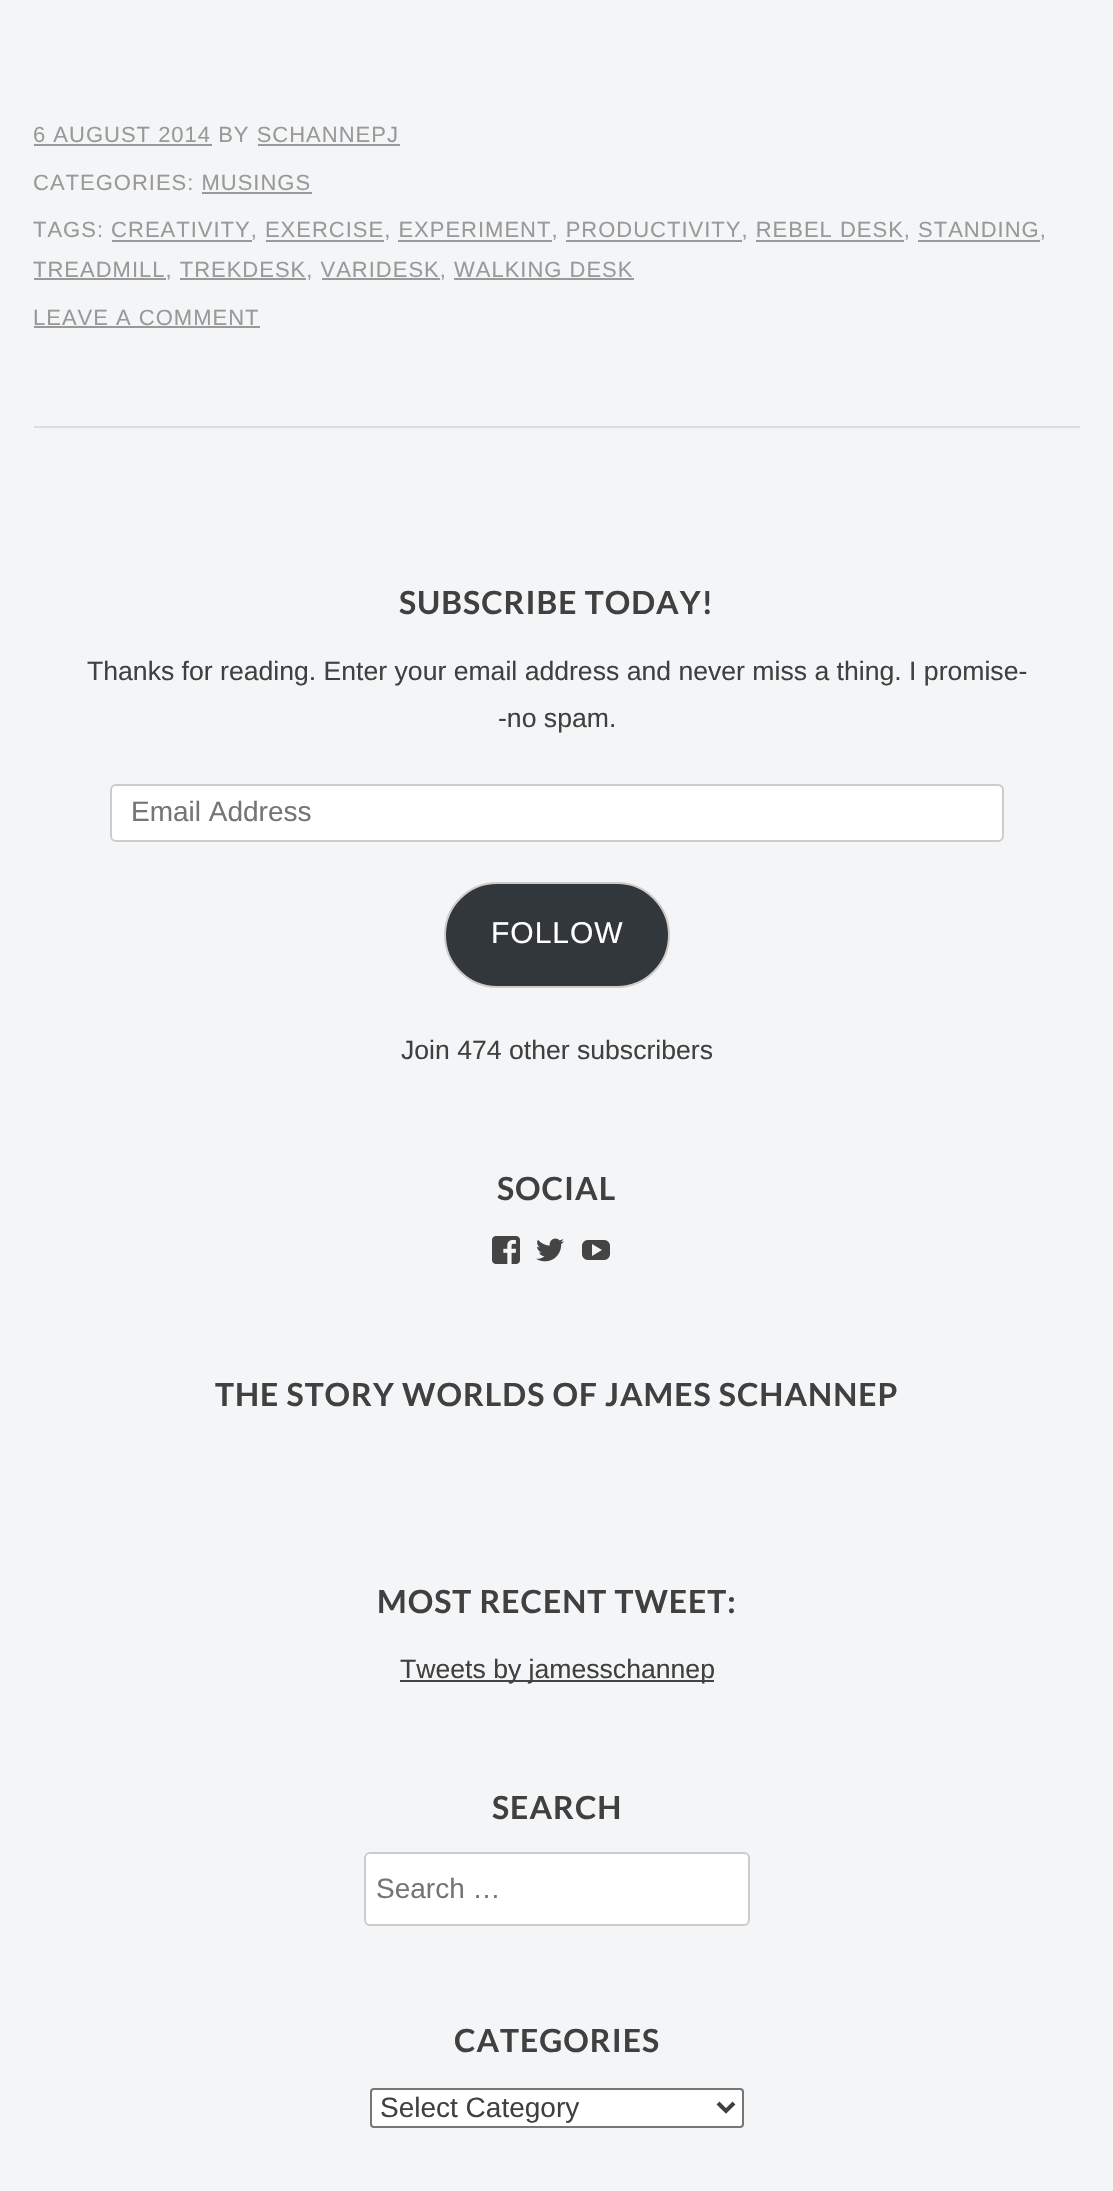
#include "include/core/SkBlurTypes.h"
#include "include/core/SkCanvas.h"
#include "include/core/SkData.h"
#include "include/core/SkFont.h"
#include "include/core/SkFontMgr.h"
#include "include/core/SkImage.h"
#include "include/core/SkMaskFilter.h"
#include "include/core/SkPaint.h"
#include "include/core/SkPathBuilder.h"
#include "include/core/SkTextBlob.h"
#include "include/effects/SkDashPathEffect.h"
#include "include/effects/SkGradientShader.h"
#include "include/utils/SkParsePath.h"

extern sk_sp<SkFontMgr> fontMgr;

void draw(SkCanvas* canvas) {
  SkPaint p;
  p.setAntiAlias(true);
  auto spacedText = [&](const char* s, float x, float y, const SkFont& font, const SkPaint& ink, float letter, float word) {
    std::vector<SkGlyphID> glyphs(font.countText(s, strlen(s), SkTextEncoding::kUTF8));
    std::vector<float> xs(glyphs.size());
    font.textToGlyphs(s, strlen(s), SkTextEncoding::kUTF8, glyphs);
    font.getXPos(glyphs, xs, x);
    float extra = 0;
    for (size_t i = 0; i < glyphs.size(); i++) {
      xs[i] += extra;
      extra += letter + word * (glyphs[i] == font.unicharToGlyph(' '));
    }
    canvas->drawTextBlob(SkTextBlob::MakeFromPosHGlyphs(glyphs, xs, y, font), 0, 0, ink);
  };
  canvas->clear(SkColorSetRGB(243, 245, 246));
  p.setColor(SkColorSetRGB(219, 221, 221));
  canvas->drawRect(SkRect::MakeLTRB(34, 426, 1080, 428), p);
  p.setColor(SkColorSetRGB(153, 153, 153));
  canvas->drawRect(SkRect::MakeLTRB(34, 144, 212, 146), p);
  canvas->drawRect(SkRect::MakeLTRB(258, 144, 400, 146), p);
  canvas->drawRect(SkRect::MakeLTRB(202, 192, 312, 194), p);
  canvas->drawRect(SkRect::MakeLTRB(112, 240, 252, 242), p);
  canvas->drawRect(SkRect::MakeLTRB(266, 240, 384, 242), p);
  canvas->drawRect(SkRect::MakeLTRB(398, 240, 552, 242), p);
  canvas->drawRect(SkRect::MakeLTRB(566, 240, 742, 242), p);
  canvas->drawRect(SkRect::MakeLTRB(756, 240, 904, 242), p);
  canvas->drawRect(SkRect::MakeLTRB(918, 240, 1040, 242), p);
  canvas->drawRect(SkRect::MakeLTRB(34, 278, 166, 280), p);
  canvas->drawRect(SkRect::MakeLTRB(180, 278, 306, 280), p);
  canvas->drawRect(SkRect::MakeLTRB(322, 278, 440, 280), p);
  canvas->drawRect(SkRect::MakeLTRB(454, 278, 634, 280), p);
  canvas->drawRect(SkRect::MakeLTRB(34, 326, 260, 328), p);
  p.setColor(SK_ColorWHITE);
  canvas->drawRoundRect(SkRect::MakeLTRB(111, 785, 1003, 841), 5, 5, p);
  p.setStyle(SkPaint::kStroke_Style);
  p.setStrokeWidth(2);
  p.setColor(SkColorSetRGB(204, 204, 204));
  canvas->drawRoundRect(SkRect::MakeLTRB(111, 785, 1003, 841), 5, 5, p);
  p.setStyle(SkPaint::kFill_Style);
  p.setColor(SkColorSetRGB(50, 55, 60));
  canvas->drawRoundRect(SkRect::MakeLTRB(445, 883, 669, 987), 52, 52, p);
  p.setStyle(SkPaint::kStroke_Style);
  p.setColor(SkColorSetRGB(204, 204, 204));
  canvas->drawRoundRect(SkRect::MakeLTRB(445, 883, 669, 987), 52, 52, p);
  canvas->drawImageRect(SkImages::DeferredFromEncodedData(SkData::MakeFromFileName("images/1.png")), SkRect::MakeLTRB(492, 1236, 520, 1264), SkSamplingOptions());
  canvas->drawImageRect(SkImages::DeferredFromEncodedData(SkData::MakeFromFileName("images/2.png")), SkRect::MakeLTRB(536, 1238, 564, 1262), SkSamplingOptions());
  canvas->drawImageRect(SkImages::DeferredFromEncodedData(SkData::MakeFromFileName("images/3.png")), SkRect::MakeLTRB(582, 1240, 610, 1260), SkSamplingOptions());
  p.setStyle(SkPaint::kFill_Style);
  p.setColor(SkColorSetRGB(68, 68, 68));
  canvas->drawRect(SkRect::MakeLTRB(400, 1680, 714, 1682), p);
  p.setColor(SK_ColorWHITE);
  canvas->drawRoundRect(SkRect::MakeLTRB(365, 1853, 749, 1925), 5, 5, p);
  p.setStyle(SkPaint::kStroke_Style);
  p.setColor(SkColorSetRGB(204, 204, 204));
  canvas->drawRoundRect(SkRect::MakeLTRB(365, 1853, 749, 1925), 5, 5, p);
  p.setStyle(SkPaint::kFill_Style);
  p.setColor(SK_ColorWHITE);
  canvas->drawRoundRect(SkRect::MakeLTRB(371, 2089, 743, 2127), 3, 3, p);
  p.setStyle(SkPaint::kStroke_Style);
  p.setColor(SkColorSetRGB(118, 118, 118));
  canvas->drawRoundRect(SkRect::MakeLTRB(371, 2089, 743, 2127), 3, 3, p);
  p.setStrokeWidth(4);
  p.setColor(SkColorSetRGB(64, 64, 64));
  canvas->drawPath(SkPathBuilder().moveTo(718, 2103).lineTo(726, 2111).lineTo(734, 2103).detach(), p);
  SkFont font1(fontMgr->matchFamilyStyle("Liberation Sans", SkFontStyle::Normal()), 22);
  font1.setSubpixel(true);
  p.setStyle(SkPaint::kFill_Style);
  p.setColor(SkColorSetRGB(153, 153, 153));
  spacedText("6 AUGUST 2014 BY SCHANNEPJ", 33, 142, font1, p, 1, 0);
  spacedText("CATEGORIES: MUSINGS", 33, 190, font1, p, 1, 0);
  spacedText("TAGS: CREATIVITY, EXERCISE, EXPERIMENT, PRODUCTIVITY, REBEL DESK, STANDING,", 33, 237, font1, p, 1, 0);
  spacedText("TREADMILL, TREKDESK, VARIDESK, WALKING DESK", 33, 277, font1, p, 1, 0);
  spacedText("LEAVE A COMMENT", 33, 325, font1, p, 1, 0);
  SkFont font2(fontMgr->matchFamilyStyle("Lato", SkFontStyle::Bold()), 31.9f);
  font2.setSubpixel(true);
  p.setColor(SkColorSetRGB(64, 64, 64));
  spacedText("SUBSCRIBE TODAY!", 399, 614, font2, p, 1, 0);
  SkFont font3(fontMgr->matchFamilyStyle("Liberation Sans", SkFontStyle::Normal()), 26.6f);
  font3.setSubpixel(true);
  canvas->drawString("Thanks for reading. Enter your email address and never miss a thing. I promise-", 87, 680, font3, p);
  canvas->drawString("-no spam.", 498, 727, font3, p);
  SkFont font4(fontMgr->matchFamilyStyle("Liberation Sans", SkFontStyle::Normal()), 28);
  font4.setSubpixel(true);
  p.setColor(SkColorSetRGB(117, 117, 117));
  canvas->drawString("Email Address", 131, 821, font4, p);
  SkFont font5(fontMgr->matchFamilyStyle("Liberation Sans", SkFontStyle::Normal()), 30);
  font5.setSubpixel(true);
  p.setColor(SK_ColorWHITE);
  spacedText("FOLLOW", 491, 943, font5, p, 1, 0);
  p.setColor(SkColorSetRGB(64, 64, 64));
  canvas->drawString("Join 474 other subscribers", 401, 1059, font3, p);
  spacedText("SOCIAL", 497, 1200, font2, p, 1, 0);
  spacedText("THE STORY WORLDS OF JAMES SCHANNEP", 215, 1406, font2, p, 1, 0);
  spacedText("MOST RECENT TWEET:", 377, 1613, font2, p, 1, 0);
  canvas->drawString("Tweets by jamesschannep", 400, 1678, font3, p);
  spacedText("SEARCH", 492, 1819, font2, p, 1, 0);
  p.setColor(SkColorSetRGB(117, 117, 117));
  canvas->drawString("Search …", 376, 1898, font4, p);
  p.setColor(SkColorSetRGB(64, 64, 64));
  spacedText("CATEGORIES", 454, 2052, font2, p, 1, 0);
  canvas->drawString("Select Category", 380, 2117, font4, p);
}
